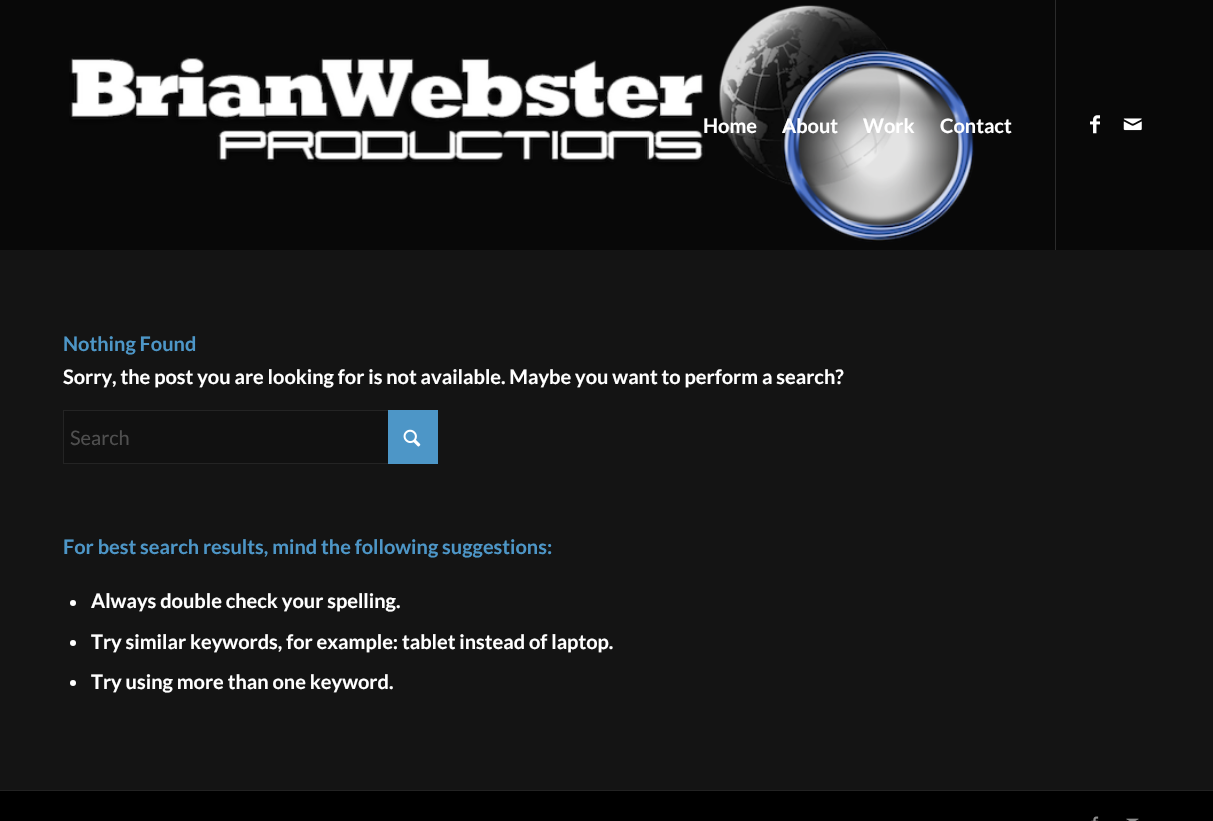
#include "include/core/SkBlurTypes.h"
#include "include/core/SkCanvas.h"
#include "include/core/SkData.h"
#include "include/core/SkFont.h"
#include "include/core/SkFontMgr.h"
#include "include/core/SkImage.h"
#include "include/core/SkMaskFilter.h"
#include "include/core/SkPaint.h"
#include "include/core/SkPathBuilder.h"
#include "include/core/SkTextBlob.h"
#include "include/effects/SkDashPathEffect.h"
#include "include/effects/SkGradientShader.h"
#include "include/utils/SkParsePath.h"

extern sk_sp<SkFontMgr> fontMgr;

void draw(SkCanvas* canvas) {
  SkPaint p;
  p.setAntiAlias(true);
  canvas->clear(SkColorSetRGB(20, 20, 20));
  p.setColor(SkColorSetRGB(8, 8, 8));
  canvas->drawRect(SkRect::MakeLTRB(0, 0, 1213, 250), p);
  canvas->drawImageRect(SkImages::DeferredFromEncodedData(SkData::MakeFromFileName("images/1.png")), SkRect::MakeLTRB(69, 5, 975, 242), SkSamplingOptions());
  p.setColor(SkColorSetRGB(43, 43, 43));
  canvas->drawRect(SkRect::MakeLTRB(1055, 0, 1056, 250), p);
  canvas->drawImageRect(SkImages::DeferredFromEncodedData(SkData::MakeFromFileName("images/2.png")), SkRect::MakeLTRB(1090, 115, 1100, 134), SkSamplingOptions());
  canvas->drawImageRect(SkImages::DeferredFromEncodedData(SkData::MakeFromFileName("images/3.png")), SkRect::MakeLTRB(1123, 118, 1142, 131), SkSamplingOptions());
  p.setColor(SkColorSetRGB(17, 17, 17));
  canvas->drawRect(SkRect::MakeLTRB(64, 411, 388, 463), p);
  p.setStyle(SkPaint::kStroke_Style);
  p.setStrokeWidth(1);
  p.setColor(SkColorSetRGB(36, 36, 36));
  canvas->drawRect(SkRect::MakeLTRB(63.5f, 410.5f, 437.5f, 463.5f), p);
  p.setStyle(SkPaint::kFill_Style);
  p.setColor(SkColorSetRGB(77, 150, 199));
  canvas->drawRect(SkRect::MakeLTRB(388, 410, 438, 464), p);
  canvas->drawImageRect(SkImages::DeferredFromEncodedData(SkData::MakeFromFileName("images/4.png")), SkRect::MakeLTRB(403, 429, 421, 447), SkSamplingOptions());
  p.setColor(SK_ColorWHITE);
  canvas->drawCircle(73, 603, 3, p);
  canvas->drawCircle(73, 643, 3, p);
  canvas->drawCircle(73, 683, 3, p);
  p.setColor(SK_ColorBLACK);
  canvas->drawRect(SkRect::MakeLTRB(0, 791, 1213, 821), p);
  p.setColor(SkColorSetRGB(34, 34, 34));
  canvas->drawRect(SkRect::MakeLTRB(0, 790, 1213, 791), p);
  canvas->drawImageRect(SkImages::DeferredFromEncodedData(SkData::MakeFromFileName("images/5.png")), SkRect::MakeLTRB(1091, 816, 1099, 821), SkSamplingOptions());
  canvas->drawImageRect(SkImages::DeferredFromEncodedData(SkData::MakeFromFileName("images/6.png")), SkRect::MakeLTRB(1126, 818, 1139, 821), SkSamplingOptions());
  SkFont font1(fontMgr->matchFamilyStyle("Lato", SkFontStyle::Bold()), 20);
  font1.setSubpixel(true);
  p.setColor(SK_ColorWHITE);
  canvas->drawString("Home", 703, 133, font1, p);
  canvas->drawString("About", 782, 133, font1, p);
  canvas->drawString("Work", 863, 133, font1, p);
  canvas->drawString("Contact", 940, 133, font1, p);
  p.setColor(SkColorSetRGB(77, 150, 199));
  canvas->drawString("Nothing Found", 63, 351, font1, p);
  p.setColor(SK_ColorWHITE);
  canvas->drawString("Sorry, the post you are looking for is not available. Maybe you want to perform a search?", 63, 384, font1, p);
  SkFont font2(fontMgr->matchFamilyStyle("Lato", SkFontStyle::Normal()), 20);
  font2.setSubpixel(true);
  p.setColor(SkColorSetRGB(79, 79, 79));
  canvas->drawString("Search", 70, 445, font2, p);
  p.setColor(SkColorSetRGB(77, 150, 199));
  canvas->drawString("For best search results, mind the following suggestions:", 63, 554, font1, p);
  p.setColor(SK_ColorWHITE);
  canvas->drawString("Always double check your spelling.", 91, 608, font1, p);
  canvas->drawString("Try similar keywords, for example: tablet instead of laptop.", 91, 649, font1, p);
  canvas->drawString("Try using more than one keyword.", 91, 689, font1, p);
}
